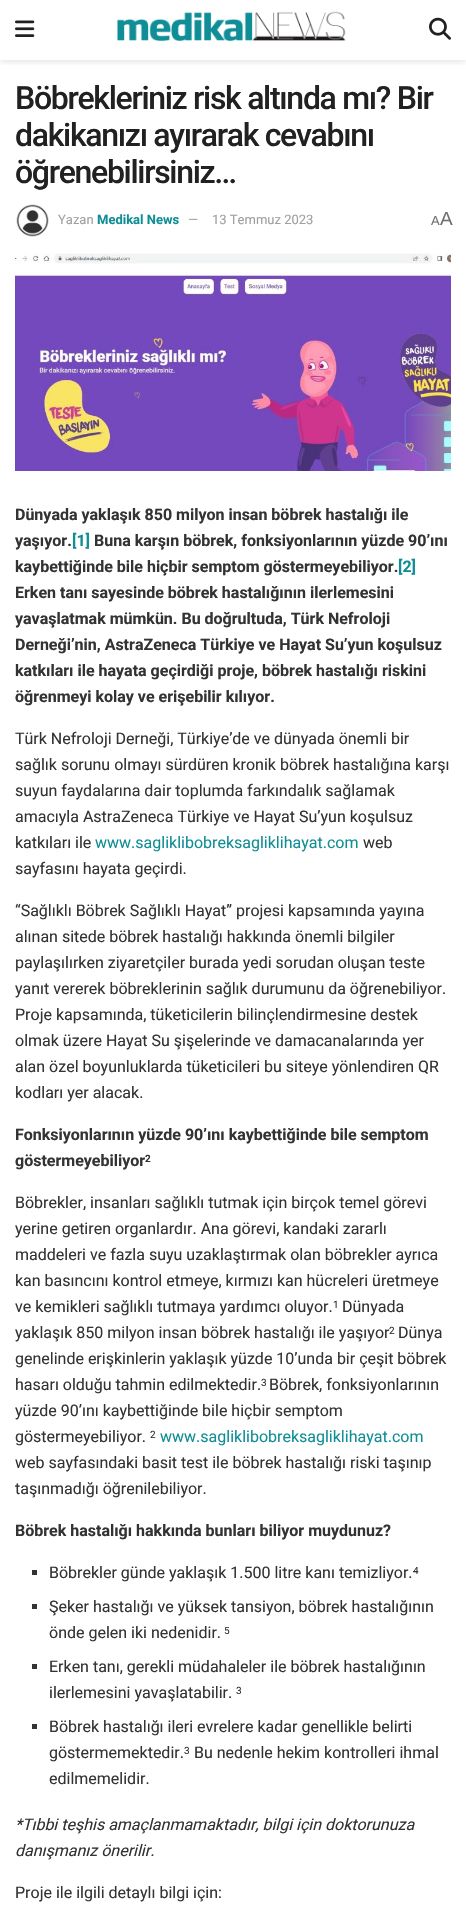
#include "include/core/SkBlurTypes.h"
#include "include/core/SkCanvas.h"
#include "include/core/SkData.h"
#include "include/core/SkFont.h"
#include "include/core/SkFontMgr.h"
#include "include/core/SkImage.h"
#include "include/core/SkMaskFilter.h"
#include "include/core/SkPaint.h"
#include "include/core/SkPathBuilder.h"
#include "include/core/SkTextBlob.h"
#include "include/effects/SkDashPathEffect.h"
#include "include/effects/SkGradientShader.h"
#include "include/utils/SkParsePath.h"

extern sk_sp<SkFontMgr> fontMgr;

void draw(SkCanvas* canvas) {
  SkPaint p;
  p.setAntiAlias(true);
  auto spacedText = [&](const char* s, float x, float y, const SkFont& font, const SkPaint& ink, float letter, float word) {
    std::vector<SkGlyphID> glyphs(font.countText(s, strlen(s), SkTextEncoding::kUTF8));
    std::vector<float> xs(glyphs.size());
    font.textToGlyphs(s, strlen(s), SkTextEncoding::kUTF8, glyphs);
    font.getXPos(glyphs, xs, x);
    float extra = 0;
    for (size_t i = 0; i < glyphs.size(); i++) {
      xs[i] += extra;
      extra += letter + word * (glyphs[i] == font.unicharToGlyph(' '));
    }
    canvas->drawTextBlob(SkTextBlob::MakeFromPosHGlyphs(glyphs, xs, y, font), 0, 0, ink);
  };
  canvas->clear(SK_ColorWHITE);
  canvas->save();
  canvas->clipRect(SkRect::MakeLTRB(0, 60, 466, 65));
  p.setColor(SkColorSetARGB(26, 0, 0, 0));
  p.setMaskFilter(SkMaskFilter::MakeBlur(kNormal_SkBlurStyle, 3));
  canvas->drawRect(SkRect::MakeLTRB(0, 2, 466, 62), p);
  p.setMaskFilter(nullptr);
  canvas->restore();
  canvas->drawImageRect(SkImages::DeferredFromEncodedData(SkData::MakeFromFileName("images/1.png")), SkRect::MakeLTRB(15, 20, 35, 37), SkSamplingOptions());
  canvas->drawImageRect(SkImages::DeferredFromEncodedData(SkData::MakeFromFileName("images/2.png")), SkRect::MakeLTRB(116, 11, 346, 42), SkSamplingOptions());
  canvas->drawImageRect(SkImages::DeferredFromEncodedData(SkData::MakeFromFileName("images/3.png")), SkRect::MakeLTRB(429, 17, 451, 40), SkSamplingOptions());
  canvas->drawImageRect(SkImages::DeferredFromEncodedData(SkData::MakeFromFileName("images/4.png")), SkRect::MakeLTRB(16, 204, 49, 237), SkSamplingOptions());
  canvas->drawImageRect(SkImages::DeferredFromEncodedData(SkData::MakeFromFileName("images/5.png")), SkRect::MakeLTRB(15, 253, 451, 471), SkSamplingOptions());
  p.setColor(SkColorSetRGB(51, 51, 51));
  canvas->drawRect(SkRect::MakeLTRB(32, 1570, 37, 1575), p);
  canvas->drawRect(SkRect::MakeLTRB(413, 1571, 418, 1572), p);
  canvas->drawRect(SkRect::MakeLTRB(32, 1604, 37, 1609), p);
  canvas->drawRect(SkRect::MakeLTRB(32, 1664, 37, 1669), p);
  canvas->drawRect(SkRect::MakeLTRB(32, 1724, 37, 1729), p);
  SkFont font1(fontMgr->matchFamilyStyle("Roboto", SkFontStyle(500, SkFontStyle::kNormal_Width, SkFontStyle::kUpright_Slant)), 32);
  font1.setSubpixel(true);
  p.setColor(SkColorSetRGB(33, 33, 33));
  spacedText("Böbrekleriniz risk altında mı? Bir", 15, 109, font1, p, -1.3f, 0);
  spacedText("dakikanızı ayırarak cevabını", 15, 146, font1, p, -1.3f, 0);
  spacedText("öğrenebilirsiniz…", 15, 183, font1, p, -1.3f, 0);
  SkFont font2(fontMgr->matchFamilyStyle("Roboto", SkFontStyle::Normal()), 13);
  font2.setSubpixel(true);
  p.setColor(SkColorSetRGB(160, 160, 160));
  canvas->drawString("Yazan", 58, 224, font2, p);
  SkFont font3(fontMgr->matchFamilyStyle("Roboto", SkFontStyle::Bold()), 13);
  font3.setSubpixel(true);
  p.setColor(SkColorSetRGB(15, 142, 149));
  canvas->drawString("Medikal News", 97, 224, font3, p);
  p.setColor(SkColorSetRGB(160, 160, 160));
  canvas->drawString("—", 188, 224, font2, p);
  canvas->drawString("13 Temmuz 2023", 212, 224, font2, p);
  SkFont font4(fontMgr->matchFamilyStyle("Liberation Sans", SkFontStyle::Normal()), 13);
  font4.setSubpixel(true);
  p.setColor(SkColorSetRGB(112, 112, 112));
  canvas->drawString("A", 431, 225, font4, p);
  SkFont font5(fontMgr->matchFamilyStyle("Liberation Sans", SkFontStyle::Normal()), 19);
  font5.setSubpixel(true);
  canvas->drawString("A", 440, 225, font5, p);
  SkFont font6(fontMgr->matchFamilyStyle("Roboto", SkFontStyle::Bold()), 16);
  font6.setSubpixel(true);
  p.setColor(SkColorSetRGB(51, 51, 51));
  canvas->drawString("Dünyada yaklaşık 850 milyon insan böbrek hastalığı ile", 15, 520, font6, p);
  canvas->drawString("yaşıyor.", 15, 546, font6, p);
  p.setColor(SkColorSetRGB(15, 142, 149));
  canvas->drawString("[1]", 72, 546, font6, p);
  p.setColor(SkColorSetRGB(51, 51, 51));
  canvas->drawString("Buna karşın böbrek, fonksiyonlarının yüzde 90’ını", 94, 546, font6, p);
  canvas->drawString("kaybettiğinde bile hiçbir semptom göstermeyebiliyor.", 15, 572, font6, p);
  p.setColor(SkColorSetRGB(15, 142, 149));
  canvas->drawString("[2]", 398, 572, font6, p);
  p.setColor(SkColorSetRGB(51, 51, 51));
  canvas->drawString("Erken tanı sayesinde böbrek hastalığının ilerlemesini", 15, 598, font6, p);
  canvas->drawString("yavaşlatmak mümkün. Bu doğrultuda, Türk Nefroloji", 15, 624, font6, p);
  canvas->drawString("Derneği’nin, AstraZeneca Türkiye ve Hayat Su’yun koşulsuz", 15, 650, font6, p);
  canvas->drawString("katkıları ile hayata geçirdiği proje, böbrek hastalığı riskini", 15, 676, font6, p);
  canvas->drawString("öğrenmeyi kolay ve erişebilir kılıyor.", 15, 702, font6, p);
  SkFont font7(fontMgr->matchFamilyStyle("Roboto", SkFontStyle::Normal()), 16);
  font7.setSubpixel(true);
  canvas->drawString("Türk Nefroloji Derneği, Türkiye’de ve dünyada önemli bir", 15, 744, font7, p);
  canvas->drawString("sağlık sorunu olmayı sürdüren kronik böbrek hastalığına karşı", 15, 770, font7, p);
  canvas->drawString("suyun faydalarına dair toplumda farkındalık sağlamak", 15, 796, font7, p);
  canvas->drawString("amacıyla AstraZeneca Türkiye ve Hayat Su’yun koşulsuz", 15, 822, font7, p);
  canvas->drawString("katkıları ile", 15, 848, font7, p);
  p.setColor(SkColorSetRGB(15, 142, 149));
  canvas->drawString("www.sagliklibobreksagliklihayat.com", 95, 848, font7, p);
  p.setColor(SkColorSetRGB(51, 51, 51));
  canvas->drawString("web", 363, 848, font7, p);
  canvas->drawString("sayfasını hayata geçirdi.", 15, 874, font7, p);
  canvas->drawString("“Sağlıklı Böbrek Sağlıklı Hayat” projesi kapsamında yayına", 15, 916, font7, p);
  canvas->drawString("alınan sitede böbrek hastalığı hakkında önemli bilgiler", 15, 942, font7, p);
  canvas->drawString("paylaşılırken ziyaretçiler burada yedi sorudan oluşan teste", 15, 968, font7, p);
  canvas->drawString("yanıt vererek böbreklerinin sağlık durumunu da öğrenebiliyor.", 15, 994, font7, p);
  canvas->drawString("Proje kapsamında, tüketicilerin bilinçlendirmesine destek", 15, 1020, font7, p);
  canvas->drawString("olmak üzere Hayat Su şişelerinde ve damacanalarında yer", 15, 1046, font7, p);
  canvas->drawString("alan özel boyunluklarda tüketicileri bu siteye yönlendiren QR", 15, 1072, font7, p);
  canvas->drawString("kodları yer alacak.", 15, 1098, font7, p);
  canvas->drawString("Fonksiyonlarının yüzde 90’ını kaybettiğinde bile semptom", 15, 1140, font6, p);
  canvas->drawString("göstermeyebiliyor", 15, 1166, font6, p);
  SkFont font8(fontMgr->matchFamilyStyle("Roboto", SkFontStyle::Bold()), 10);
  font8.setSubpixel(true);
  canvas->drawString("2", 145, 1162, font8, p);
  canvas->drawString("Böbrekler, insanları sağlıklı tutmak için birçok temel görevi", 15, 1208, font7, p);
  canvas->drawString("yerine getiren organlardır. Ana görevi, kandaki zararlı", 15, 1234, font7, p);
  canvas->drawString("maddeleri ve fazla suyu uzaklaştırmak olan böbrekler ayrıca", 15, 1260, font7, p);
  canvas->drawString("kan basıncını kontrol etmeye, kırmızı kan hücreleri üretmeye", 15, 1286, font7, p);
  canvas->drawString("ve kemikleri sağlıklı tutmaya yardımcı oluyor.", 15, 1312, font7, p);
  SkFont font9(fontMgr->matchFamilyStyle("Roboto", SkFontStyle::Normal()), 10);
  font9.setSubpixel(true);
  canvas->drawString("1", 333, 1308, font9, p);
  canvas->drawString("Dünyada", 342, 1312, font7, p);
  canvas->drawString("yaklaşık 850 milyon insan böbrek hastalığı ile yaşıyor", 15, 1338, font7, p);
  canvas->drawString("2", 389, 1334, font9, p);
  canvas->drawString("Dünya", 398, 1338, font7, p);
  canvas->drawString("genelinde erişkinlerin yaklaşık yüzde 10’unda bir çeşit böbrek", 15, 1364, font7, p);
  canvas->drawString("hasarı olduğu tahmin edilmektedir.", 15, 1390, font7, p);
  canvas->drawString("3", 261, 1386, font9, p);
  canvas->drawString("Böbrek, fonksiyonlarının", 269, 1390, font7, p);
  canvas->drawString("yüzde 90’ını kaybettiğinde bile hiçbir semptom", 15, 1416, font7, p);
  canvas->drawString("göstermeyebiliyor.", 15, 1442, font7, p);
  canvas->drawString("2", 150, 1438, font9, p);
  p.setColor(SkColorSetRGB(15, 142, 149));
  canvas->drawString("www.sagliklibobreksagliklihayat.com", 160, 1442, font7, p);
  p.setColor(SkColorSetRGB(51, 51, 51));
  canvas->drawString("web sayfasındaki basit test ile böbrek hastalığı riski taşınıp", 15, 1468, font7, p);
  canvas->drawString("taşınmadığı öğrenilebiliyor.", 15, 1494, font7, p);
  canvas->drawString("Böbrek hastalığı hakkında bunları biliyor muydunuz?", 15, 1536, font6, p);
  canvas->drawString("Böbrekler günde yaklaşık 1.500 litre kanı temizliyor.", 49, 1578, font7, p);
  canvas->drawString("4", 413, 1574, font9, p);
  canvas->drawString("Şeker hastalığı ve yüksek tansiyon, böbrek hastalığının", 49, 1612, font7, p);
  canvas->drawString("önde gelen iki nedenidir.", 49, 1638, font7, p);
  canvas->drawString("5", 224, 1634, font9, p);
  canvas->drawString("Erken tanı, gerekli müdahaleler ile böbrek hastalığının", 49, 1672, font7, p);
  canvas->drawString("ilerlemesini yavaşlatabilir.", 49, 1698, font7, p);
  canvas->drawString("3", 236, 1694, font9, p);
  canvas->drawString("Böbrek hastalığı ileri evrelere kadar genellikle belirti", 49, 1732, font7, p);
  canvas->drawString("göstermemektedir.", 49, 1758, font7, p);
  canvas->drawString("3", 184, 1754, font9, p);
  canvas->drawString("Bu nedenle hekim kontrolleri ihmal", 194, 1758, font7, p);
  canvas->drawString("edilmemelidir.", 49, 1784, font7, p);
  SkFont font10(fontMgr->matchFamilyStyle("Roboto", SkFontStyle::Italic()), 16);
  font10.setSubpixel(true);
  canvas->drawString("*Tıbbi teşhis amaçlanmamaktadır, bilgi için doktorunuza", 15, 1830, font10, p);
  canvas->drawString("danışmanız önerilir.", 15, 1856, font10, p);
  canvas->drawString("Proje ile ilgili detaylı bilgi için:", 15, 1898, font7, p);
}
